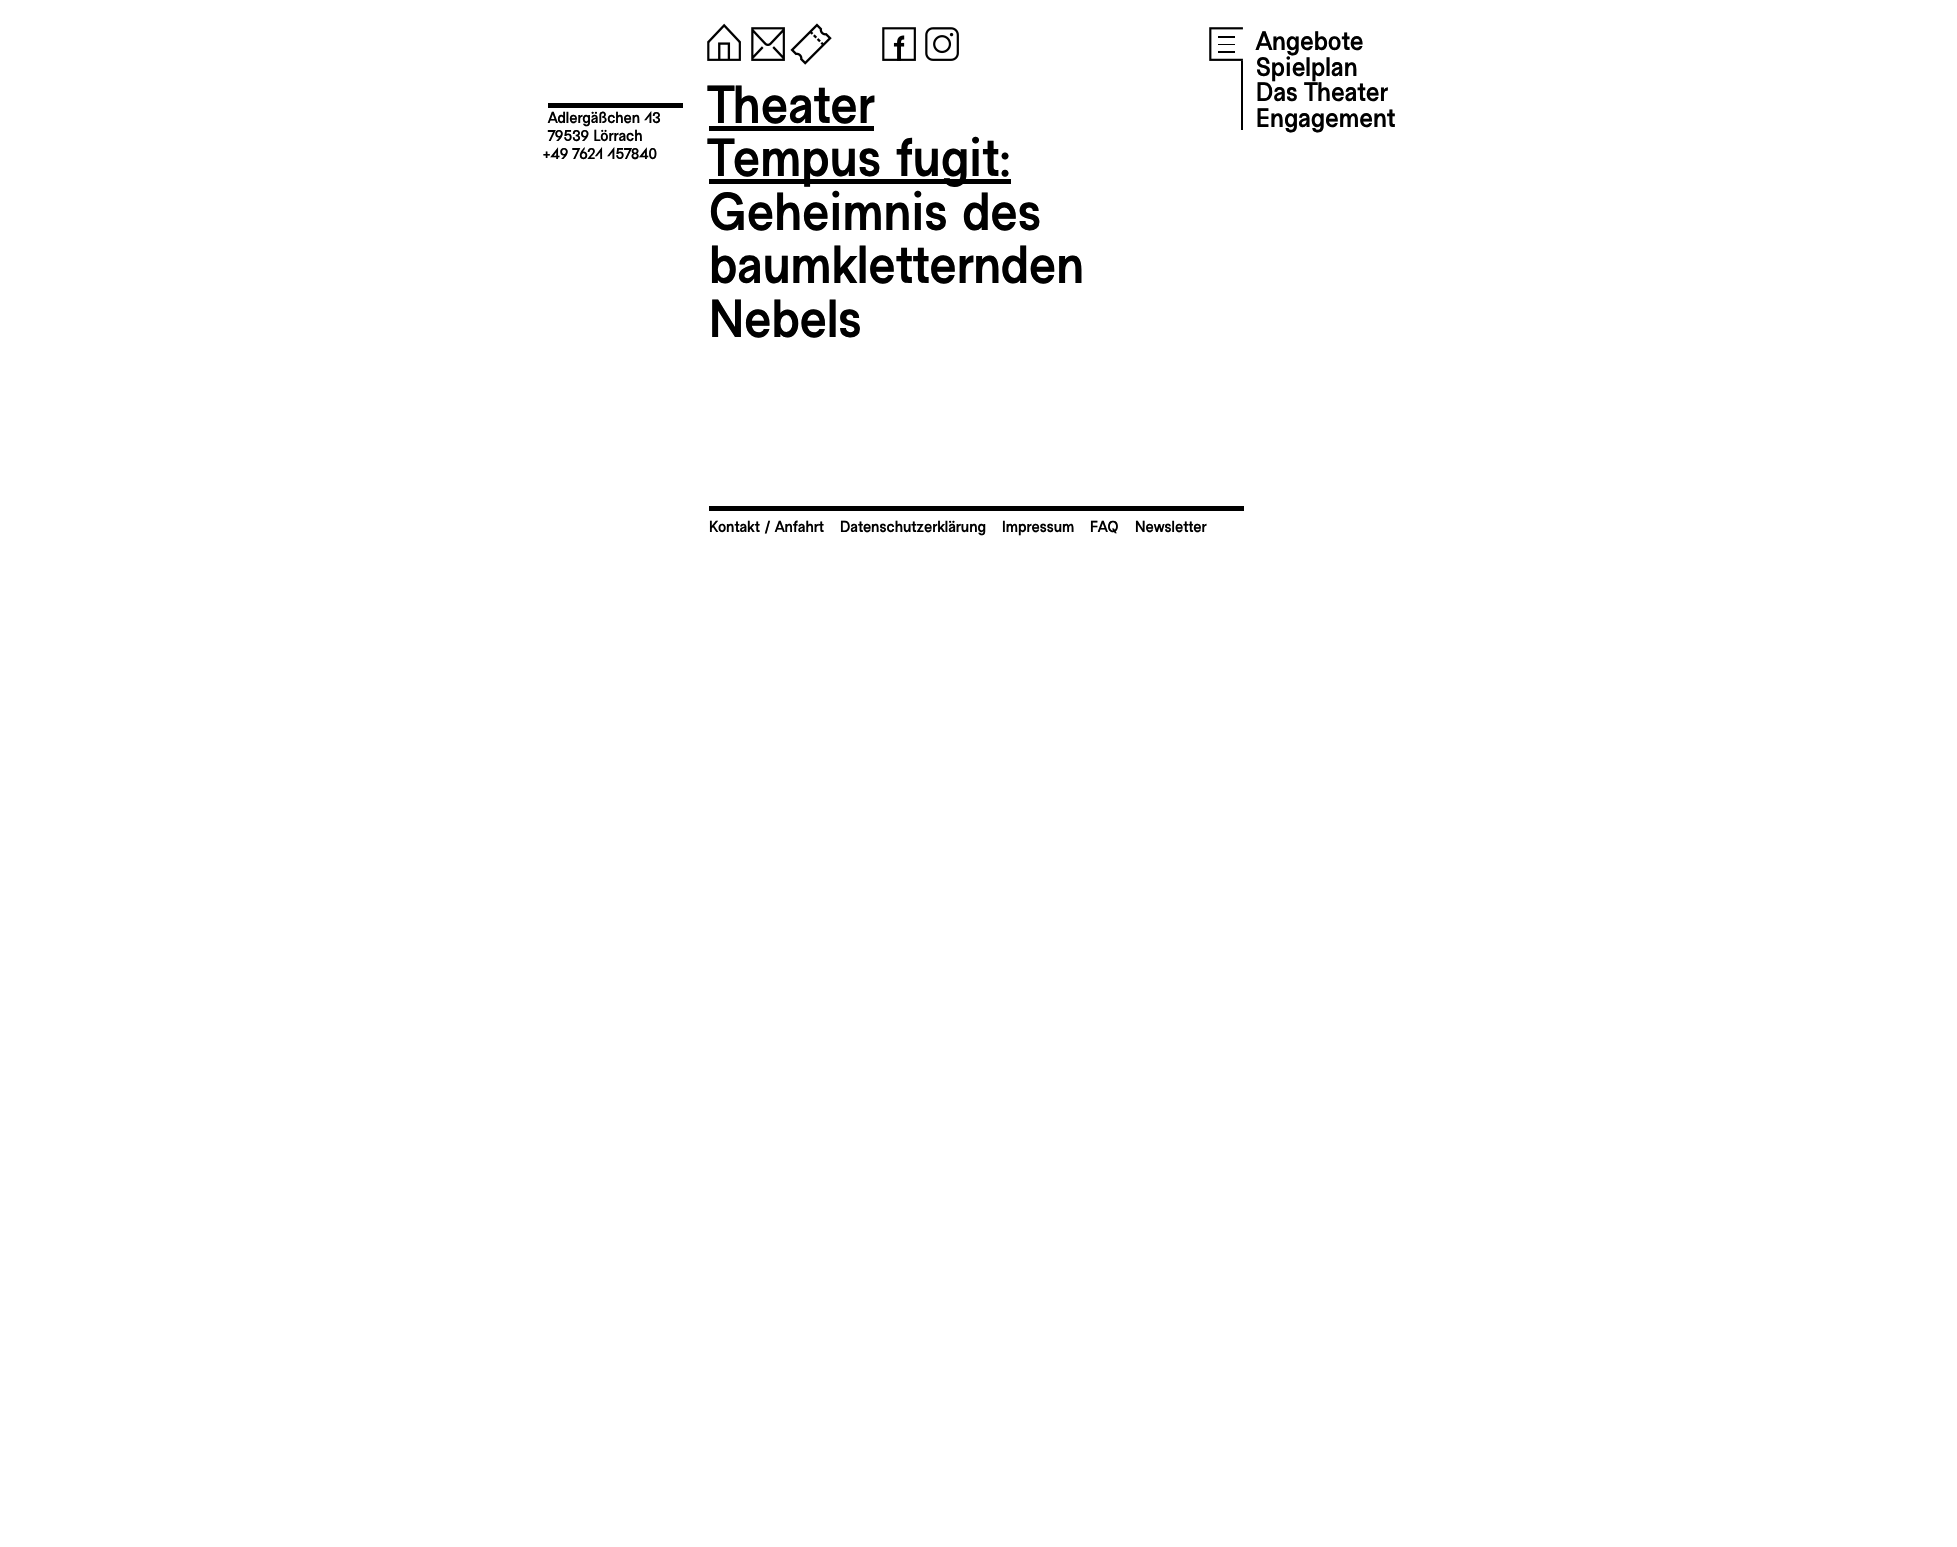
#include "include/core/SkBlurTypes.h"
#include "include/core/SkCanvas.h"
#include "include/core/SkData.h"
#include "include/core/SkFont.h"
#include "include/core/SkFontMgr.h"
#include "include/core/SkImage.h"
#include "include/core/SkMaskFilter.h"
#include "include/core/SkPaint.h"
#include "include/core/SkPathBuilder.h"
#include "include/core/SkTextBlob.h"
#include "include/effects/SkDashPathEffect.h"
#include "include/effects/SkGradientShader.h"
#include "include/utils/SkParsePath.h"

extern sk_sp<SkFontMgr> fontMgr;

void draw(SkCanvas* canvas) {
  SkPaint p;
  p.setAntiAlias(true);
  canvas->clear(SK_ColorWHITE);
  p.setColor(SK_ColorBLACK);
  canvas->drawRect(SkRect::MakeLTRB(548, 103, 683, 108), p);
  canvas->drawImageRect(SkImages::DeferredFromEncodedData(SkData::MakeFromFileName("images/1.png")), SkRect::MakeLTRB(707, 23, 741, 61), SkSamplingOptions());
  canvas->drawImageRect(SkImages::DeferredFromEncodedData(SkData::MakeFromFileName("images/2.png")), SkRect::MakeLTRB(751, 27, 785, 61), SkSamplingOptions());
  canvas->drawImageRect(SkImages::DeferredFromEncodedData(SkData::MakeFromFileName("images/3.png")), SkRect::MakeLTRB(790, 23, 832, 65), SkSamplingOptions());
  canvas->drawImageRect(SkImages::DeferredFromEncodedData(SkData::MakeFromFileName("images/4.png")), SkRect::MakeLTRB(882, 27, 916, 61), SkSamplingOptions());
  canvas->drawImageRect(SkImages::DeferredFromEncodedData(SkData::MakeFromFileName("images/5.png")), SkRect::MakeLTRB(925, 27, 959, 61), SkSamplingOptions());
  canvas->drawImageRect(SkImages::DeferredFromEncodedData(SkData::MakeFromFileName("images/6.png")), SkRect::MakeLTRB(1209, 27, 1243, 61), SkSamplingOptions());
  canvas->drawRect(SkRect::MakeLTRB(1241, 61, 1243, 130), p);
  canvas->drawRect(SkRect::MakeLTRB(709, 126, 874, 131), p);
  canvas->drawRect(SkRect::MakeLTRB(709, 179, 1011, 184), p);
  canvas->drawRect(SkRect::MakeLTRB(709, 506, 1244, 511), p);
  SkFont font1(fontMgr->matchFamilyStyle("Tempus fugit", SkFontStyle::Normal()), 16);
  font1.setSubpixel(true);
  canvas->drawString("Adlergäßchen 13", 548, 123, font1, p);
  canvas->drawString("79539 Lörrach", 548, 141, font1, p);
  canvas->drawString("+49 7621 157840", 543, 159, font1, p);
  SkFont font2(fontMgr->matchFamilyStyle("Tempus fugit", SkFontStyle::Normal()), 26.75f);
  font2.setSubpixel(true);
  canvas->drawString("Angebote", 1256, 50, font2, p);
  canvas->drawString("Spielplan", 1256, 76, font2, p);
  canvas->drawString("Das Theater", 1256, 101, font2, p);
  canvas->drawString("Engagement", 1256, 127, font2, p);
  SkFont font3(fontMgr->matchFamilyStyle("Tempus fugit", SkFontStyle::Normal()), 53.5f);
  font3.setSubpixel(true);
  canvas->drawString("Theater", 709, 123, font3, p);
  canvas->drawString("Tempus fugit:", 709, 176, font3, p);
  canvas->drawString("Geheimnis des", 709, 230, font3, p);
  canvas->drawString("baumkletternden", 709, 283, font3, p);
  canvas->drawString("Nebels", 709, 337, font3, p);
  canvas->drawString("Kontakt / Anfahrt", 709, 532, font1, p);
  canvas->drawString("Datenschutzerklärung", 840, 532, font1, p);
  canvas->drawString("Impressum", 1002, 532, font1, p);
  canvas->drawString("FAQ", 1090, 532, font1, p);
  canvas->drawString("Newsletter", 1135, 532, font1, p);
}
